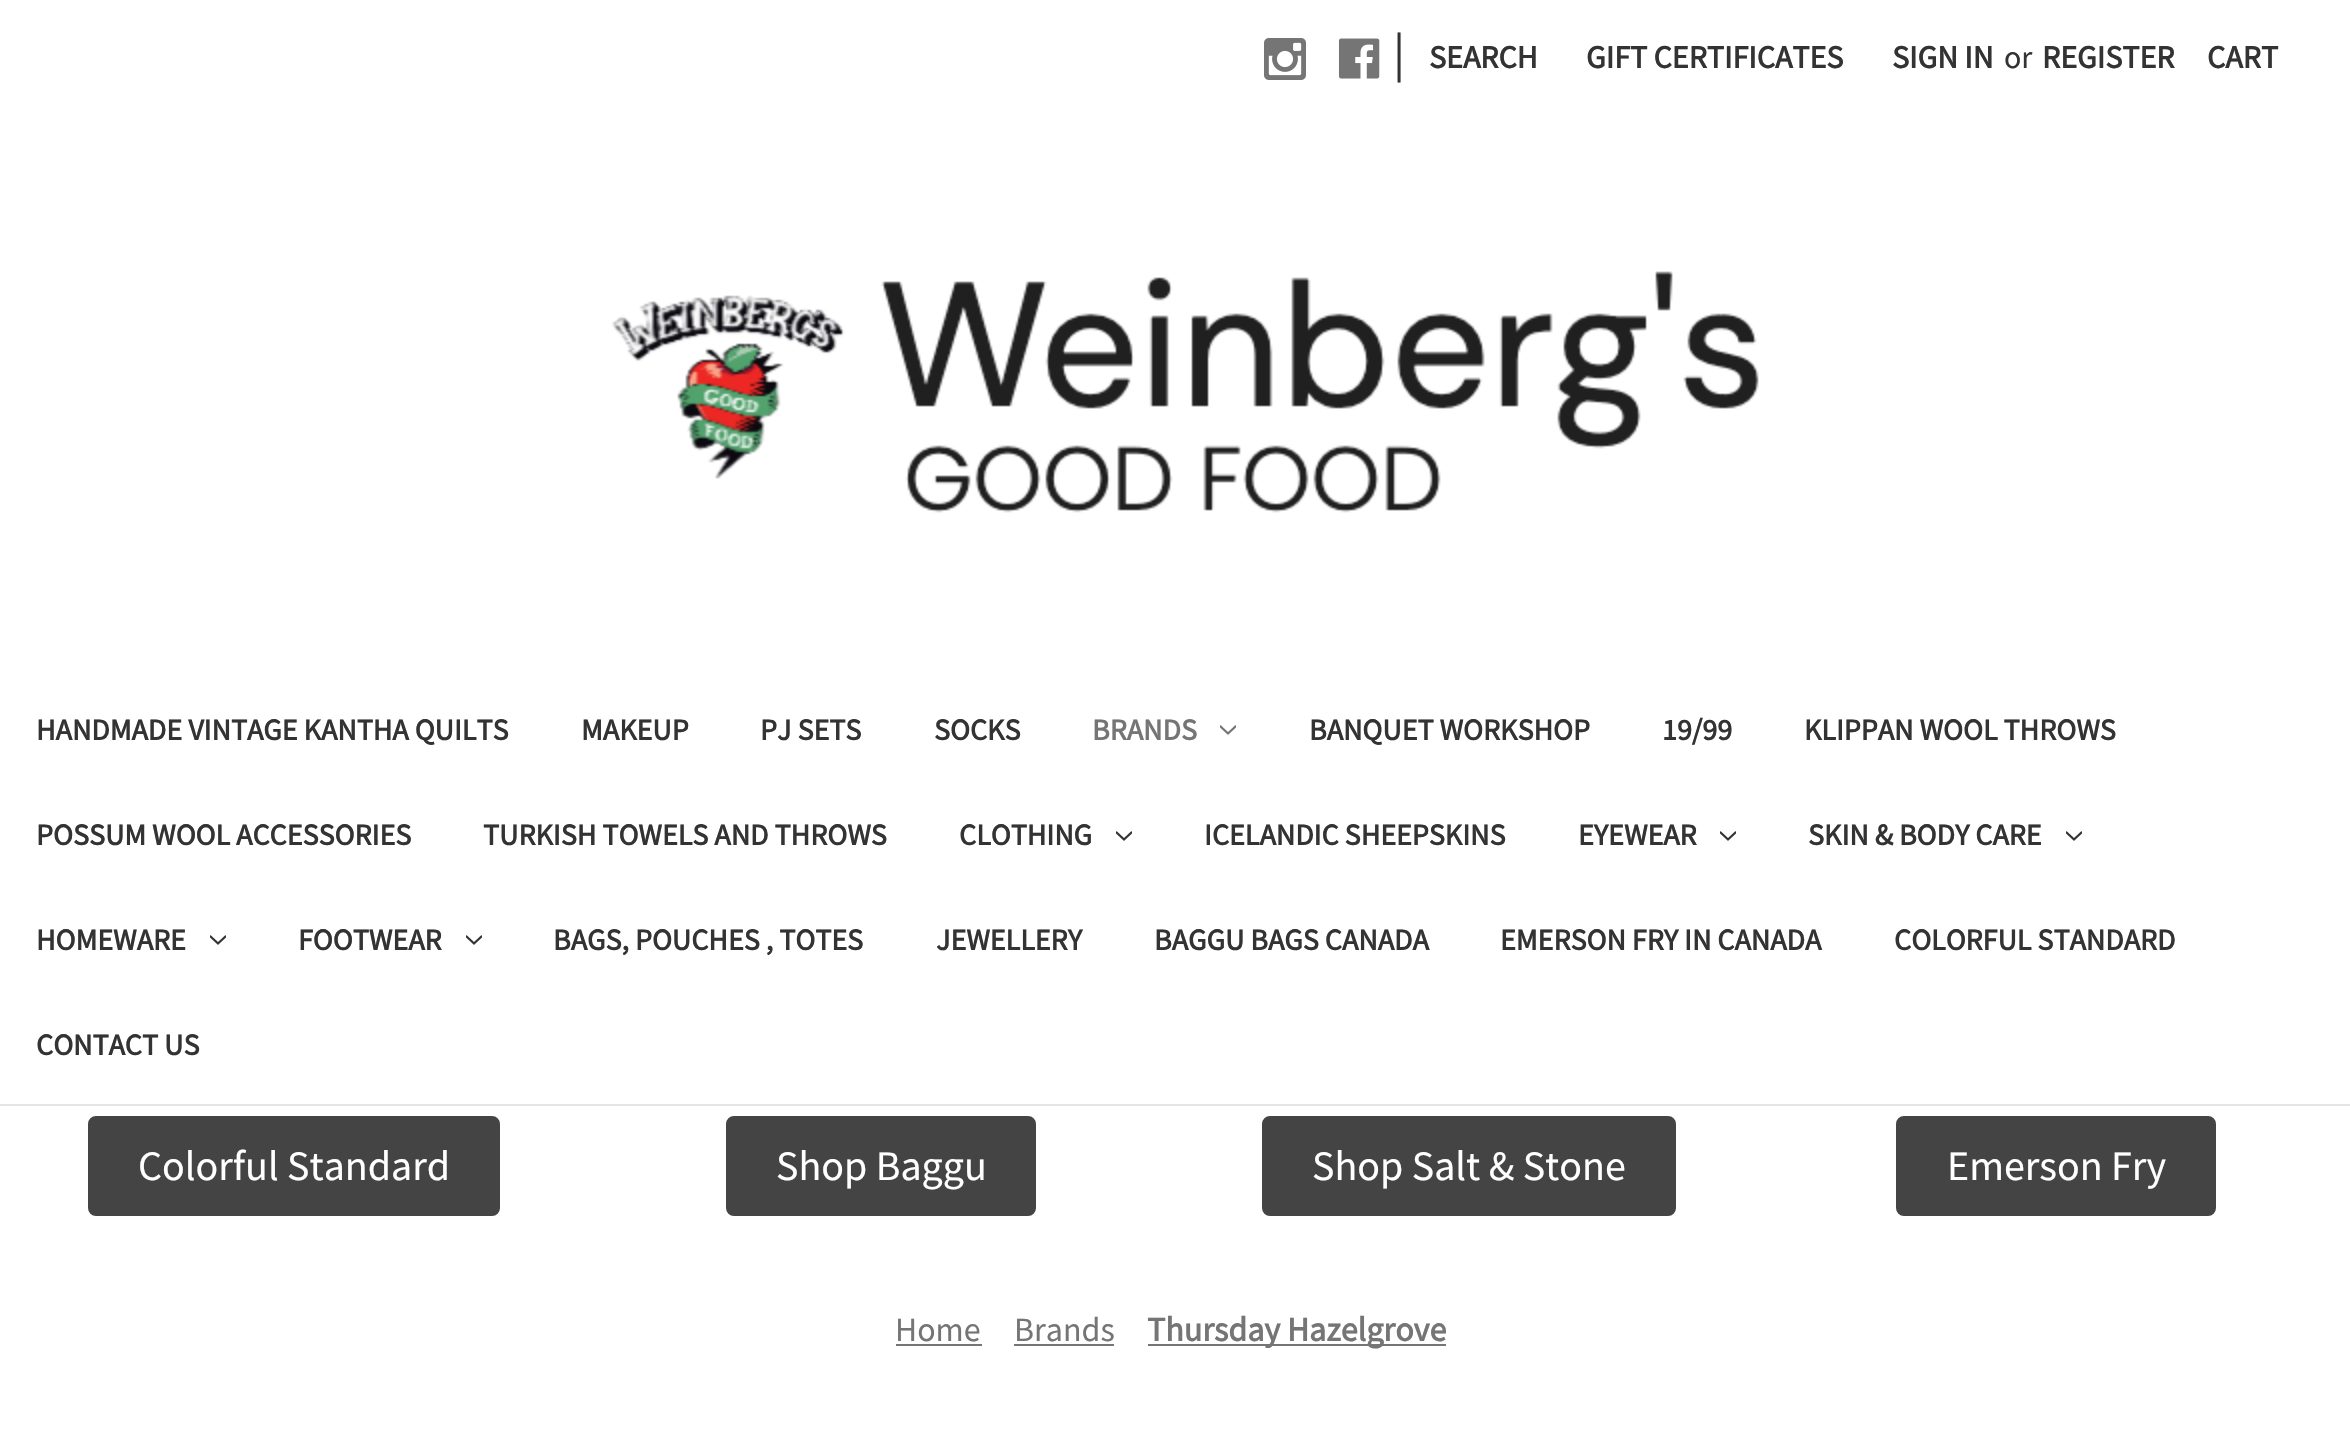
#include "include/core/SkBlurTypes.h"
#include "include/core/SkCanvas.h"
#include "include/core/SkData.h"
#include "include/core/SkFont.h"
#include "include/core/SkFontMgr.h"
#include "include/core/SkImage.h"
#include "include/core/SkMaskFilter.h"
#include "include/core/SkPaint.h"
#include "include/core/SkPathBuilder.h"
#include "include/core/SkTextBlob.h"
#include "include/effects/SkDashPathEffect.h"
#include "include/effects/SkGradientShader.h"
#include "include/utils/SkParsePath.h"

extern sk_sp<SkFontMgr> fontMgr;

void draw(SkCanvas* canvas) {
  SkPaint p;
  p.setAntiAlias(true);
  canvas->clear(SK_ColorWHITE);
  p.setColor(SkColorSetRGB(229, 229, 229));
  canvas->drawRect(SkRect::MakeLTRB(0, 1104, 2350, 1106), p);
  canvas->drawImageRect(SkImages::DeferredFromEncodedData(SkData::MakeFromFileName("images/1.png")), SkRect::MakeLTRB(1264, 38, 1306, 80), SkSamplingOptions());
  canvas->drawImageRect(SkImages::DeferredFromEncodedData(SkData::MakeFromFileName("images/2.png")), SkRect::MakeLTRB(1338, 38, 1380, 79), SkSamplingOptions());
  canvas->drawImageRect(SkImages::DeferredFromEncodedData(SkData::MakeFromFileName("images/3.png")), SkRect::MakeLTRB(611, 271, 1759, 513), SkSamplingOptions());
  canvas->drawImageRect(SkImages::DeferredFromEncodedData(SkData::MakeFromFileName("images/4.png")), SkRect::MakeLTRB(1220, 725, 1236, 735), SkSamplingOptions());
  canvas->drawImageRect(SkImages::DeferredFromEncodedData(SkData::MakeFromFileName("images/5.png")), SkRect::MakeLTRB(1116, 831, 1132, 841), SkSamplingOptions());
  canvas->drawImageRect(SkImages::DeferredFromEncodedData(SkData::MakeFromFileName("images/5.png")), SkRect::MakeLTRB(1720, 831, 1736, 841), SkSamplingOptions());
  canvas->drawImageRect(SkImages::DeferredFromEncodedData(SkData::MakeFromFileName("images/5.png")), SkRect::MakeLTRB(2066, 831, 2082, 841), SkSamplingOptions());
  canvas->drawImageRect(SkImages::DeferredFromEncodedData(SkData::MakeFromFileName("images/5.png")), SkRect::MakeLTRB(210, 935, 226, 945), SkSamplingOptions());
  canvas->drawImageRect(SkImages::DeferredFromEncodedData(SkData::MakeFromFileName("images/5.png")), SkRect::MakeLTRB(466, 935, 482, 945), SkSamplingOptions());
  p.setColor(SkColorSetRGB(68, 68, 68));
  canvas->drawRoundRect(SkRect::MakeLTRB(89, 1117, 499, 1215), 7, 7, p);
  p.setStyle(SkPaint::kStroke_Style);
  p.setStrokeWidth(2);
  canvas->drawRoundRect(SkRect::MakeLTRB(89, 1117, 499, 1215), 7, 7, p);
  p.setStyle(SkPaint::kFill_Style);
  canvas->drawRoundRect(SkRect::MakeLTRB(727, 1117, 1035, 1215), 7, 7, p);
  p.setStyle(SkPaint::kStroke_Style);
  canvas->drawRoundRect(SkRect::MakeLTRB(727, 1117, 1035, 1215), 7, 7, p);
  p.setStyle(SkPaint::kFill_Style);
  canvas->drawRoundRect(SkRect::MakeLTRB(1263, 1117, 1675, 1215), 7, 7, p);
  p.setStyle(SkPaint::kStroke_Style);
  canvas->drawRoundRect(SkRect::MakeLTRB(1263, 1117, 1675, 1215), 7, 7, p);
  p.setStyle(SkPaint::kFill_Style);
  canvas->drawRoundRect(SkRect::MakeLTRB(1897, 1117, 2215, 1215), 7, 7, p);
  p.setStyle(SkPaint::kStroke_Style);
  canvas->drawRoundRect(SkRect::MakeLTRB(1897, 1117, 2215, 1215), 7, 7, p);
  p.setStyle(SkPaint::kFill_Style);
  p.setColor(SkColorSetRGB(117, 117, 117));
  canvas->drawRect(SkRect::MakeLTRB(896, 1344, 982, 1346), p);
  canvas->drawRect(SkRect::MakeLTRB(1014, 1344, 1114, 1346), p);
  canvas->drawRect(SkRect::MakeLTRB(1148, 1344, 1446, 1346), p);
  SkFont font1(fontMgr->matchFamilyStyle("Source Sans Pro", SkFontStyle::Normal()), 50);
  font1.setSubpixel(true);
  p.setColor(SkColorSetRGB(51, 51, 51));
  canvas->drawString("|", 1393, 70, font1, p);
  SkFont font2(fontMgr->matchFamilyStyle("Source Sans Pro", SkFontStyle::Bold()), 32);
  font2.setSubpixel(true);
  canvas->drawString("SEARCH", 1429, 68, font2, p);
  canvas->drawString("GIFT CERTIFICATES", 1586, 68, font2, p);
  canvas->drawString("SIGN IN", 1892, 68, font2, p);
  SkFont font3(fontMgr->matchFamilyStyle("Source Sans Pro", SkFontStyle::Normal()), 32);
  font3.setSubpixel(true);
  canvas->drawString("or", 2004, 68, font3, p);
  canvas->drawString("REGISTER", 2042, 68, font2, p);
  canvas->drawString("CART", 2207, 68, font2, p);
  SkFont font4(fontMgr->matchFamilyStyle("Source Sans Pro", SkFontStyle::Bold()), 30);
  font4.setSubpixel(true);
  canvas->drawString("HANDMADE VINTAGE KANTHA QUILTS", 36, 740, font4, p);
  canvas->drawString("MAKEUP", 581, 740, font4, p);
  canvas->drawString("PJ SETS", 760, 740, font4, p);
  canvas->drawString("SOCKS", 934, 740, font4, p);
  p.setColor(SkColorSetRGB(117, 117, 117));
  canvas->drawString("BRANDS", 1092, 740, font4, p);
  p.setColor(SkColorSetRGB(51, 51, 51));
  canvas->drawString("BANQUET WORKSHOP", 1309, 740, font4, p);
  canvas->drawString("19/99", 1662, 740, font4, p);
  canvas->drawString("KLIPPAN WOOL THROWS", 1804, 740, font4, p);
  canvas->drawString("POSSUM WOOL ACCESSORIES", 36, 845, font4, p);
  canvas->drawString("TURKISH TOWELS AND THROWS", 483, 845, font4, p);
  canvas->drawString("CLOTHING", 959, 845, font4, p);
  canvas->drawString("ICELANDIC SHEEPSKINS", 1204, 845, font4, p);
  canvas->drawString("EYEWEAR", 1578, 845, font4, p);
  canvas->drawString("SKIN & BODY CARE", 1808, 845, font4, p);
  canvas->drawString("HOMEWARE", 36, 950, font4, p);
  canvas->drawString("FOOTWEAR", 298, 950, font4, p);
  canvas->drawString("BAGS, POUCHES , TOTES", 553, 950, font4, p);
  canvas->drawString("JEWELLERY", 936, 950, font4, p);
  canvas->drawString("BAGGU BAGS CANADA", 1154, 950, font4, p);
  canvas->drawString("EMERSON FRY IN CANADA", 1500, 950, font4, p);
  canvas->drawString("COLORFUL STANDARD", 1894, 950, font4, p);
  canvas->drawString("CONTACT US", 36, 1055, font4, p);
  SkFont font5(fontMgr->matchFamilyStyle("Source Sans Pro", SkFontStyle::Normal()), 42);
  font5.setSubpixel(true);
  p.setColor(SK_ColorWHITE);
  canvas->drawString("Colorful Standard", 138, 1180, font5, p);
  canvas->drawString("Shop Baggu", 776, 1180, font5, p);
  canvas->drawString("Shop Salt & Stone", 1312, 1180, font5, p);
  canvas->drawString("Emerson Fry", 1947, 1180, font5, p);
  SkFont font6(fontMgr->matchFamilyStyle("Source Sans Pro", SkFontStyle::Normal()), 34);
  font6.setSubpixel(true);
  p.setColor(SkColorSetRGB(117, 117, 117));
  canvas->drawString("Home", 895, 1341, font6, p);
  canvas->drawString("Brands", 1014, 1341, font6, p);
  SkFont font7(fontMgr->matchFamilyStyle("Source Sans Pro", SkFontStyle::Bold()), 34);
  font7.setSubpixel(true);
  canvas->drawString("Thursday Hazelgrove", 1147, 1341, font7, p);
}
